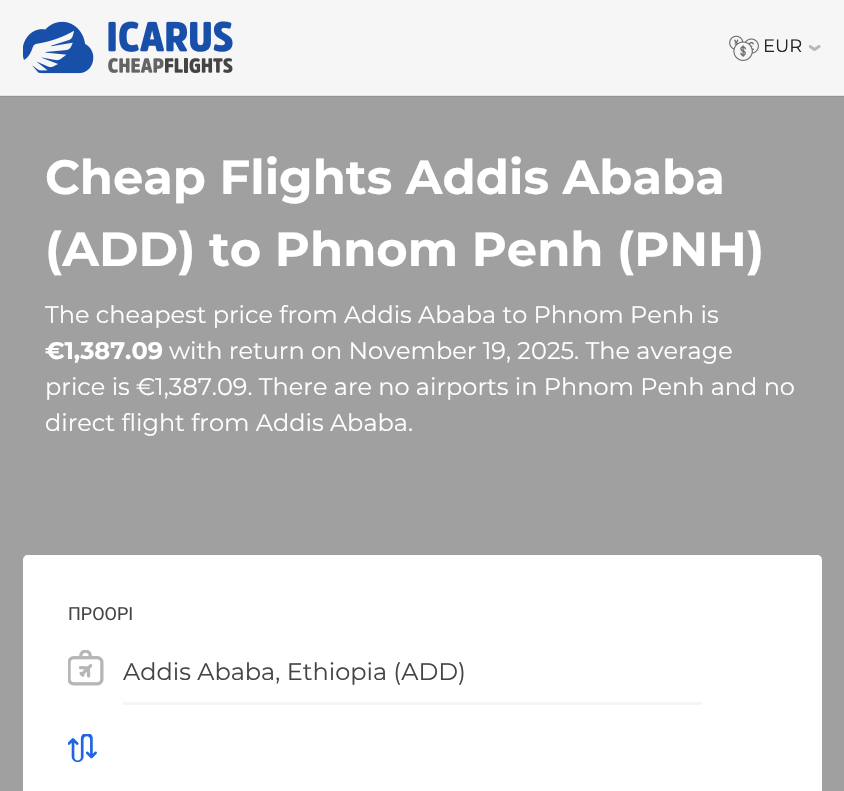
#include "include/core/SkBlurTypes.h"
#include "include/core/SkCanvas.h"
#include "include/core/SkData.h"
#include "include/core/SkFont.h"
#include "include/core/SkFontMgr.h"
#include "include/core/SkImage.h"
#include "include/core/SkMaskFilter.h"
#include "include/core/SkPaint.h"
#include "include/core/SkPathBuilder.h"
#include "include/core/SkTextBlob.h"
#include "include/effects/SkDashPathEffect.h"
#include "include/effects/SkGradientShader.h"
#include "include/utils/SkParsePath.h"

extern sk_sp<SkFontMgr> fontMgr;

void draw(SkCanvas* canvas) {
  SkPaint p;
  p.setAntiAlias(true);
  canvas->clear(SkColorSetRGB(246, 246, 246));
  p.setColor(SkColorSetRGB(160, 160, 160));
  canvas->drawRect(SkRect::MakeLTRB(0, 97, 844, 791), p);
  p.setColor(SkColorSetRGB(229, 229, 229));
  canvas->drawRect(SkRect::MakeLTRB(0, 95, 844, 96), p);
  p.setColor(SkColorSetRGB(149, 149, 149));
  canvas->drawRect(SkRect::MakeLTRB(0, 96, 844, 97), p);
  canvas->drawImageRect(SkImages::DeferredFromEncodedData(SkData::MakeFromFileName("images/1.png")), SkRect::MakeLTRB(23, 21, 233, 74), SkSamplingOptions());
  canvas->drawImageRect(SkImages::DeferredFromEncodedData(SkData::MakeFromFileName("images/2.png")), SkRect::MakeLTRB(729, 35, 759, 61), SkSamplingOptions());
  canvas->drawImageRect(SkImages::DeferredFromEncodedData(SkData::MakeFromFileName("images/3.png")), SkRect::MakeLTRB(809, 45, 821, 51), SkSamplingOptions());
  p.setColor(SK_ColorWHITE);
  canvas->drawPath(SkPathBuilder().moveTo(28, 555).lineTo(817, 555).cubicTo(820, 555, 822, 557, 822, 560).lineTo(822, 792).lineTo(23, 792).lineTo(23, 560).cubicTo(23, 557, 25, 555, 28, 555).close().detach(), p);
  canvas->drawImageRect(SkImages::DeferredFromEncodedData(SkData::MakeFromFileName("images/4.png")), SkRect::MakeLTRB(68, 650, 104, 686), SkSamplingOptions());
  p.setColor(SkColorSetRGB(245, 245, 245));
  canvas->drawRect(SkRect::MakeLTRB(123, 702, 702, 705), p);
  canvas->drawImageRect(SkImages::DeferredFromEncodedData(SkData::MakeFromFileName("images/5.png")), SkRect::MakeLTRB(68, 734, 97, 763), SkSamplingOptions());
  SkFont font1(fontMgr->matchFamilyStyle("Montserrat", SkFontStyle::Normal()), 18);
  font1.setSubpixel(true);
  p.setColor(SkColorSetRGB(33, 37, 41));
  canvas->drawString("EUR", 763, 52, font1, p);
  SkFont font2(fontMgr->matchFamilyStyle("Montserrat", SkFontStyle::Bold()), 48);
  font2.setSubpixel(true);
  p.setColor(SK_ColorWHITE);
  canvas->drawString("Cheap Flights Addis Ababa", 45, 194, font2, p);
  canvas->drawString("(ADD) to Phnom Penh (PNH)", 45, 266, font2, p);
  SkFont font3(fontMgr->matchFamilyStyle("Montserrat", SkFontStyle::Normal()), 24);
  font3.setSubpixel(true);
  canvas->drawString("The cheapest price from Addis Ababa to Phnom Penh is", 45, 323, font3, p);
  SkFont font4(fontMgr->matchFamilyStyle("Montserrat", SkFontStyle::Bold()), 24);
  font4.setSubpixel(true);
  canvas->drawString("€1,387.09", 45, 359, font4, p);
  canvas->drawString("with return on November 19, 2025. The average", 169, 359, font3, p);
  canvas->drawString("price is €1,387.09. There are no airports in Phnom Penh and no", 45, 395, font3, p);
  canvas->drawString("direct flight from Addis Ababa.", 45, 431, font3, p);
  SkFont font5(fontMgr->matchFamilyStyle("Roboto", SkFontStyle::Normal()), 18);
  font5.setSubpixel(true);
  p.setColor(SkColorSetRGB(68, 69, 69));
  canvas->drawString("ΠΡΟΟΡΙ", 68, 620, font5, p);
  canvas->drawString("Addis Ababa, Ethiopia (ADD)", 123, 680, font3, p);
}
